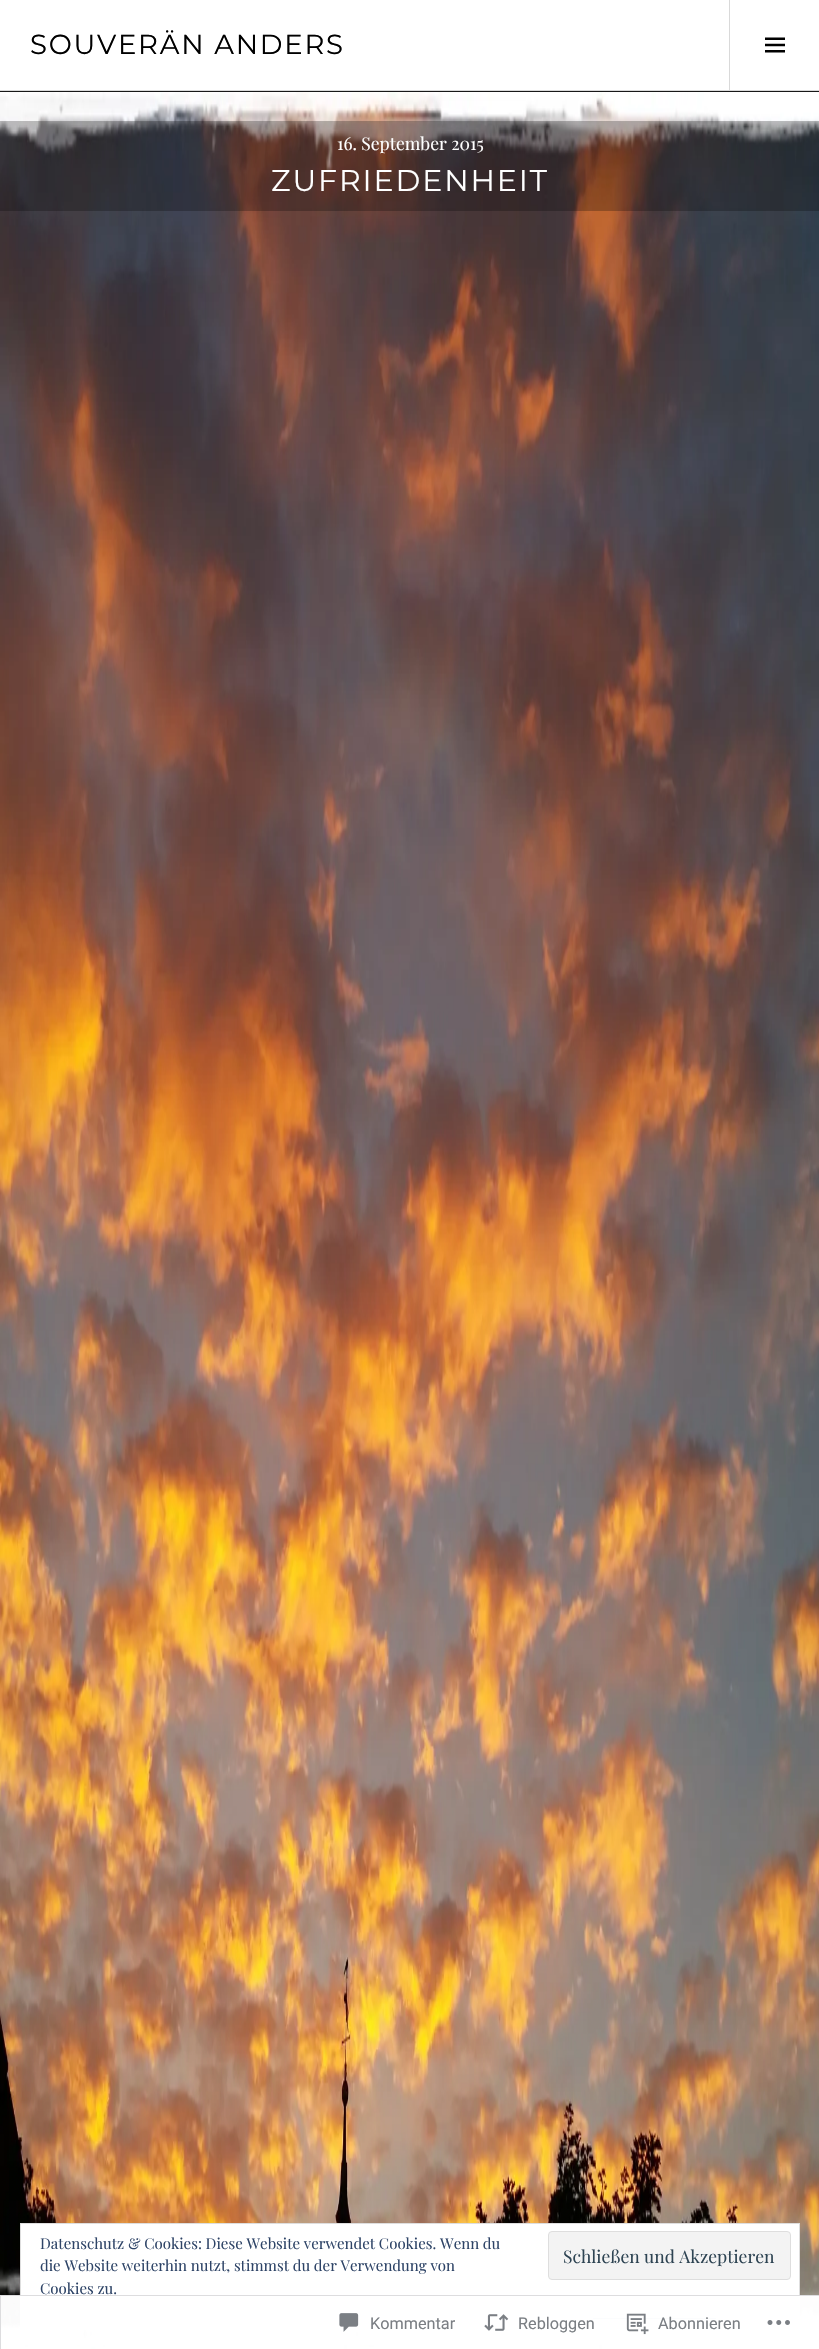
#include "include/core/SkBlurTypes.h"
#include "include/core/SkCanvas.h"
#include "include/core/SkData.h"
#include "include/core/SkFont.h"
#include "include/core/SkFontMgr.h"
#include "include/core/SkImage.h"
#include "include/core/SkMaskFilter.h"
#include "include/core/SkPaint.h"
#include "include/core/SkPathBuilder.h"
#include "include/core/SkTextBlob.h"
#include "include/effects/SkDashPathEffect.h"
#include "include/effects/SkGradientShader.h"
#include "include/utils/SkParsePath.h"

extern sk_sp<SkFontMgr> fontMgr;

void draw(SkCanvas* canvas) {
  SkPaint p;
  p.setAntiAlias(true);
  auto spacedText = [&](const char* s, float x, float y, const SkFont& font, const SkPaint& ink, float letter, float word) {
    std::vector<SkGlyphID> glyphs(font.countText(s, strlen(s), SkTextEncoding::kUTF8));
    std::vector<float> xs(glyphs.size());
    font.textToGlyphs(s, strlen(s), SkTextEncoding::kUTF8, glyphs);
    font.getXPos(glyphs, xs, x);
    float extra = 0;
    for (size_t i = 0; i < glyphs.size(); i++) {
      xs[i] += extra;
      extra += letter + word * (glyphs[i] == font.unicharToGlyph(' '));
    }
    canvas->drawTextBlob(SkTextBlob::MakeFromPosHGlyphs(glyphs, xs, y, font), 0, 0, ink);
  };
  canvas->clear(SK_ColorWHITE);
  p.setColor(SkColorSetRGB(217, 217, 217));
  canvas->drawRect(SkRect::MakeLTRB(0, 90, 819, 91), p);
  canvas->drawRect(SkRect::MakeLTRB(729, 0, 730, 90), p);
  canvas->drawImageRect(SkImages::DeferredFromEncodedData(SkData::MakeFromFileName("images/1.png")), SkRect::MakeLTRB(765, 37, 785, 53), SkSamplingOptions());
  p.setColor(SK_ColorBLACK);
  canvas->drawRect(SkRect::MakeLTRB(0, 91, 819, 92), p);
  canvas->drawImageRect(SkImages::DeferredFromEncodedData(SkData::MakeFromFileName("images/2.png")), SkRect::MakeLTRB(0, 91, 819, 2349), SkSamplingOptions());
  p.setColor(SkColorSetARGB(64, 0, 0, 0));
  canvas->drawRect(SkRect::MakeLTRB(0, 121, 819, 211), p);
  p.setColor(SK_ColorWHITE);
  canvas->drawRect(SkRect::MakeLTRB(20.5f, 2223.5f, 799.5f, 2329.5f), p);
  p.setStyle(SkPaint::kStroke_Style);
  p.setStrokeWidth(1);
  p.setColor(SkColorSetRGB(222, 222, 222));
  canvas->drawRect(SkRect::MakeLTRB(20.5f, 2223.5f, 799.5f, 2329.5f), p);
  p.setStyle(SkPaint::kFill_Style);
  p.setColor(SkColorSetRGB(243, 243, 243));
  canvas->drawRoundRect(SkRect::MakeLTRB(548.5f, 2231.5f, 790.5f, 2279.5f), 3.5f, 3.5f, p);
  p.setStyle(SkPaint::kStroke_Style);
  p.setColor(SkColorSetRGB(222, 222, 222));
  canvas->drawRoundRect(SkRect::MakeLTRB(548.5f, 2231.5f, 790.5f, 2279.5f), 3.5f, 3.5f, p);
  p.setStyle(SkPaint::kFill_Style);
  p.setColor(SkColorSetRGB(46, 68, 103));
  canvas->drawRect(SkRect::MakeLTRB(593, 2318, 716, 2319), p);
  p.setColor(SkColorSetRGB(217, 217, 217));
  canvas->drawRect(SkRect::MakeLTRB(593, 2320, 716, 2321), p);
  p.setColor(SkColorSetARGB(250, 255, 255, 255));
  canvas->drawRect(SkRect::MakeLTRB(0, 2295, 819, 2345), p);
  p.setStyle(SkPaint::kStroke_Style);
  p.setColor(SkColorSetARGB(250, 220, 220, 222));
  canvas->drawRect(SkRect::MakeLTRB(0.5f, 2295.5f, 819.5f, 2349.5f), p);
  canvas->drawImageRect(SkImages::DeferredFromEncodedData(SkData::MakeFromFileName("images/3.png")), SkRect::MakeLTRB(339, 2313, 359, 2332), SkSamplingOptions());
  canvas->drawImageRect(SkImages::DeferredFromEncodedData(SkData::MakeFromFileName("images/4.png")), SkRect::MakeLTRB(484, 2314, 509, 2331), SkSamplingOptions());
  canvas->drawImageRect(SkImages::DeferredFromEncodedData(SkData::MakeFromFileName("images/5.png")), SkRect::MakeLTRB(626, 2313, 649, 2335), SkSamplingOptions());
  canvas->drawImageRect(SkImages::DeferredFromEncodedData(SkData::MakeFromFileName("images/6.png")), SkRect::MakeLTRB(767, 2320, 790, 2325), SkSamplingOptions());
  SkFont font1(fontMgr->matchFamilyStyle("Montserrat", SkFontStyle::Normal()), 27.5f);
  font1.setSubpixel(true);
  p.setStyle(SkPaint::kFill_Style);
  p.setColor(SK_ColorBLACK);
  spacedText("SOUVERÄN ANDERS", 30, 54, font1, p, 1.75f, 0);
  SkFont font2(fontMgr->matchFamilyStyle("Playfair Display", SkFontStyle::Normal()), 17.5f);
  font2.setSubpixel(true);
  p.setColor(SK_ColorWHITE);
  canvas->drawString("16. September 2015", 337, 150, font2, p);
  SkFont font3(fontMgr->matchFamilyStyle("Montserrat", SkFontStyle::Normal()), 30);
  font3.setSubpixel(true);
  spacedText("ZUFRIEDENHEIT", 271, 191, font3, p, 1.9f, 0);
  SkFont font4(fontMgr->matchFamilyStyle("Playfair Display", SkFontStyle::Normal()), 15);
  font4.setSubpixel(true);
  p.setColor(SkColorSetRGB(46, 68, 103));
  canvas->drawString("Datenschutz & Cookies: Diese Website verwendet Cookies. Wenn du", 40, 2249, font4, p);
  canvas->drawString("die Website weiterhin nutzt, stimmst du der Verwendung von", 40, 2271, font4, p);
  p.setColor(SkColorSetRGB(46, 68, 83));
  canvas->drawString("Schließen und Akzeptieren", 563, 2263, font2, p);
  p.setColor(SkColorSetRGB(46, 68, 103));
  canvas->drawString("Cookies zu.", 40, 2294, font4, p);
  SkFont font5(fontMgr->matchFamilyStyle("Roboto", SkFontStyle::Normal()), 16.25f);
  font5.setSubpixel(true);
  p.setColor(SkColorSetRGB(123, 127, 132));
  canvas->drawString("Kommentar", 370, 2329, font5, p);
  canvas->drawString("Rebloggen", 518, 2329, font5, p);
  canvas->drawString("Abonnieren", 658, 2329, font5, p);
}
